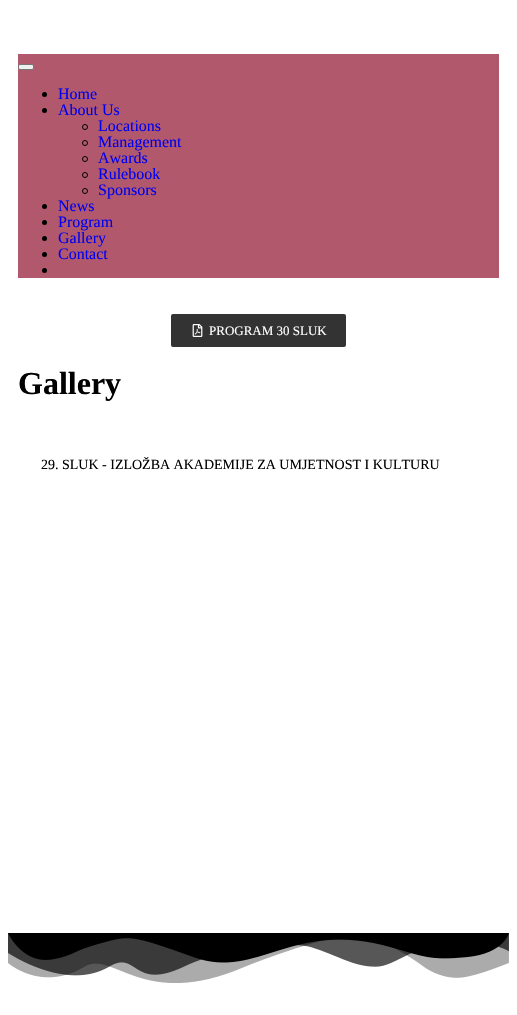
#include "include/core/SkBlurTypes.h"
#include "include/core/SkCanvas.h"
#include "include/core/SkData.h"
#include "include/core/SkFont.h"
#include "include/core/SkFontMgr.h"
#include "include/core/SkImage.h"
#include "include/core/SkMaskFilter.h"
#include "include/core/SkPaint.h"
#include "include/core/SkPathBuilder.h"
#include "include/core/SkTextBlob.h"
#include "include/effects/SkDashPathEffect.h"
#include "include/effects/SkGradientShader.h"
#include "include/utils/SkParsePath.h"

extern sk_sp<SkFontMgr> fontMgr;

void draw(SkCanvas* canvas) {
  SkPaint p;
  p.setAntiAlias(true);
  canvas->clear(SK_ColorWHITE);
  p.setColor(SkColorSetRGB(177, 88, 108));
  canvas->drawRect(SkRect::MakeLTRB(18, 54, 499, 278), p);
  p.setColor(SkColorSetRGB(239, 239, 239));
  canvas->drawRoundRect(SkRect::MakeLTRB(18.5f, 64.5f, 33.5f, 69.5f), 1.5f, 1.5f, p);
  p.setStyle(SkPaint::kStroke_Style);
  p.setStrokeWidth(1);
  p.setColor(SkColorSetRGB(118, 118, 118));
  canvas->drawRoundRect(SkRect::MakeLTRB(18.5f, 64.5f, 33.5f, 69.5f), 1.5f, 1.5f, p);
  p.setStyle(SkPaint::kFill_Style);
  p.setColor(SK_ColorBLACK);
  canvas->drawCircle(44.5f, 94.5f, 2.5f, p);
  canvas->drawCircle(44.5f, 110.5f, 2.5f, p);
  p.setStyle(SkPaint::kStroke_Style);
  canvas->drawCircle(85, 127, 2.5f, p);
  canvas->drawCircle(85, 143, 2.5f, p);
  canvas->drawCircle(85, 159, 2.5f, p);
  canvas->drawCircle(85, 175, 2.5f, p);
  canvas->drawCircle(85, 191, 2.5f, p);
  p.setStyle(SkPaint::kFill_Style);
  canvas->drawCircle(44.5f, 206.5f, 2.5f, p);
  canvas->drawCircle(44.5f, 222.5f, 2.5f, p);
  canvas->drawCircle(44.5f, 238.5f, 2.5f, p);
  canvas->drawCircle(44.5f, 254.5f, 2.5f, p);
  canvas->drawCircle(44.5f, 270.5f, 2.5f, p);
  p.setColor(SkColorSetRGB(51, 51, 51));
  canvas->drawRoundRect(SkRect::MakeLTRB(171, 314, 346, 347), 2, 2, p);
  canvas->drawImageRect(SkImages::DeferredFromEncodedData(SkData::MakeFromFileName("images/1.png")), SkRect::MakeLTRB(192, 324, 203, 337), SkSamplingOptions());
  canvas->drawImageRect(SkImages::DeferredFromEncodedData(SkData::MakeFromFileName("images/2.png")), SkRect::MakeLTRB(8, 933, 509, 983), SkSamplingOptions());
  SkFont font1(fontMgr->matchFamilyStyle("Liberation Serif", SkFontStyle::Normal()), 16);
  font1.setSubpixel(true);
  p.setColor(SkColorSetRGB(0, 0, 238));
  canvas->drawString("Home", 58, 99, font1, p);
  canvas->drawString("About Us", 58, 115, font1, p);
  canvas->drawString("Locations", 98, 131, font1, p);
  canvas->drawString("Management", 98, 147, font1, p);
  canvas->drawString("Awards", 98, 163, font1, p);
  canvas->drawString("Rulebook", 98, 179, font1, p);
  canvas->drawString("Sponsors", 98, 195, font1, p);
  canvas->drawString("News", 58, 211, font1, p);
  canvas->drawString("Program", 58, 227, font1, p);
  canvas->drawString("Gallery", 58, 243, font1, p);
  canvas->drawString("Contact", 58, 259, font1, p);
  SkFont font2(fontMgr->matchFamilyStyle("Liberation Serif", SkFontStyle::Normal()), 13);
  font2.setSubpixel(true);
  p.setColor(SK_ColorWHITE);
  canvas->drawString("PROGRAM 30 SLUK", 209, 335, font2, p);
  SkFont font3(fontMgr->matchFamilyStyle("Liberation Serif", SkFontStyle::Bold()), 32);
  font3.setSubpixel(true);
  p.setColor(SK_ColorBLACK);
  canvas->drawString("Gallery", 18, 394, font3, p);
  SkFont font4(fontMgr->matchFamilyStyle("Liberation Serif", SkFontStyle::Normal()), 14);
  font4.setSubpixel(true);
  canvas->drawString("29. SLUK - IZLOŽBA AKADEMIJE ZA UMJETNOST I KULTURU", 41, 469, font4, p);
}
